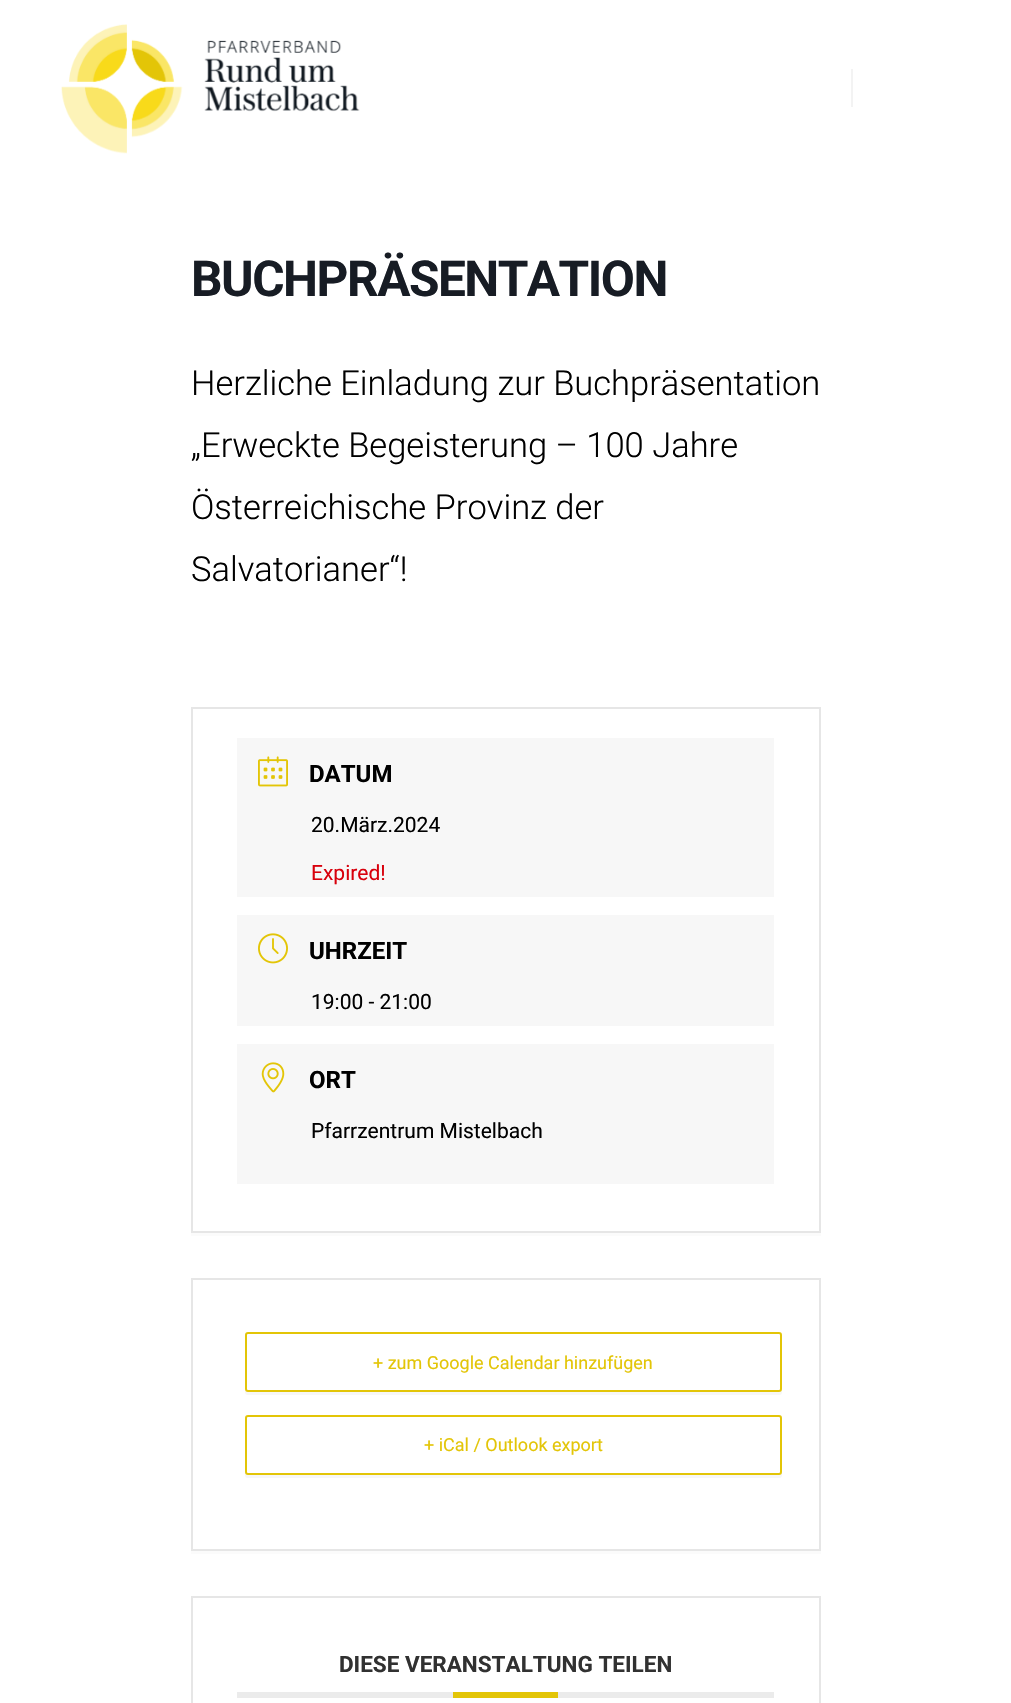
#include "include/core/SkBlurTypes.h"
#include "include/core/SkCanvas.h"
#include "include/core/SkData.h"
#include "include/core/SkFont.h"
#include "include/core/SkFontMgr.h"
#include "include/core/SkImage.h"
#include "include/core/SkMaskFilter.h"
#include "include/core/SkPaint.h"
#include "include/core/SkPathBuilder.h"
#include "include/core/SkTextBlob.h"
#include "include/effects/SkDashPathEffect.h"
#include "include/effects/SkGradientShader.h"
#include "include/utils/SkParsePath.h"

extern sk_sp<SkFontMgr> fontMgr;

void draw(SkCanvas* canvas) {
  SkPaint p;
  p.setAntiAlias(true);
  auto spacedText = [&](const char* s, float x, float y, const SkFont& font, const SkPaint& ink, float letter, float word) {
    std::vector<SkGlyphID> glyphs(font.countText(s, strlen(s), SkTextEncoding::kUTF8));
    std::vector<float> xs(glyphs.size());
    font.textToGlyphs(s, strlen(s), SkTextEncoding::kUTF8, glyphs);
    font.getXPos(glyphs, xs, x);
    float extra = 0;
    for (size_t i = 0; i < glyphs.size(); i++) {
      xs[i] += extra;
      extra += letter + word * (glyphs[i] == font.unicharToGlyph(' '));
    }
    canvas->drawTextBlob(SkTextBlob::MakeFromPosHGlyphs(glyphs, xs, y, font), 0, 0, ink);
  };
  canvas->clear(SK_ColorWHITE);
  canvas->drawImageRect(SkImages::DeferredFromEncodedData(SkData::MakeFromFileName("images/1.png")), SkRect::MakeLTRB(61, 24, 360, 154), SkSamplingOptions());
  p.setColor(SkColorSetRGB(243, 243, 243));
  canvas->drawRect(SkRect::MakeLTRB(851, 69, 853, 107), p);
  p.setColor(SkColorSetRGB(251, 251, 251));
  canvas->drawPath(SkPathBuilder().moveTo(191, 1233).lineTo(191, 1236).lineTo(821, 1236).lineTo(821, 710).lineTo(820, 710).lineTo(820, 1233).close().detach(), p);
  p.setStyle(SkPaint::kStroke_Style);
  p.setStrokeWidth(2);
  p.setColor(SkColorSetRGB(230, 230, 230));
  canvas->drawRect(SkRect::MakeLTRB(192, 708, 820, 1232), p);
  p.setStyle(SkPaint::kFill_Style);
  p.setColor(SkColorSetRGB(247, 247, 247));
  canvas->drawRect(SkRect::MakeLTRB(237, 738, 774, 897), p);
  canvas->drawImageRect(SkImages::DeferredFromEncodedData(SkData::MakeFromFileName("images/2.png")), SkRect::MakeLTRB(258, 756, 288, 787), SkSamplingOptions());
  canvas->drawRect(SkRect::MakeLTRB(237, 915, 774, 1026), p);
  canvas->drawImageRect(SkImages::DeferredFromEncodedData(SkData::MakeFromFileName("images/3.png")), SkRect::MakeLTRB(258, 933, 288, 964), SkSamplingOptions());
  canvas->drawRect(SkRect::MakeLTRB(237, 1044, 774, 1184), p);
  canvas->drawImageRect(SkImages::DeferredFromEncodedData(SkData::MakeFromFileName("images/4.png")), SkRect::MakeLTRB(261, 1062, 285, 1093), SkSamplingOptions());
  p.setColor(SkColorSetRGB(251, 251, 251));
  canvas->drawPath(SkPathBuilder().moveTo(191, 1551).lineTo(191, 1554).lineTo(821, 1554).lineTo(821, 1281).lineTo(820, 1281).lineTo(820, 1551).close().detach(), p);
  p.setStyle(SkPaint::kStroke_Style);
  p.setColor(SkColorSetRGB(230, 230, 230));
  canvas->drawRect(SkRect::MakeLTRB(192, 1279, 820, 1550), p);
  p.setStyle(SkPaint::kFill_Style);
  p.setColor(SkColorSetRGB(247, 247, 247));
  canvas->drawPath(SkPathBuilder().moveTo(245, 1391).lineTo(245, 1392).cubicTo(245, 1394, 246, 1395, 248, 1395).lineTo(779, 1395).cubicTo(781, 1395, 782, 1394, 782, 1392).lineTo(782, 1338).lineTo(782, 1336).lineTo(782, 1389).cubicTo(782, 1391, 780, 1392, 778, 1392).lineTo(248, 1392).cubicTo(246, 1392, 246, 1391, 245, 1391).close().detach(), p);
  p.setColor(SK_ColorWHITE);
  canvas->drawRoundRect(SkRect::MakeLTRB(246, 1333, 781, 1391), 2, 2, p);
  p.setStyle(SkPaint::kStroke_Style);
  p.setColor(SkColorSetRGB(227, 197, 7));
  canvas->drawRoundRect(SkRect::MakeLTRB(246, 1333, 781, 1391), 2, 2, p);
  p.setStyle(SkPaint::kFill_Style);
  p.setColor(SkColorSetRGB(247, 247, 247));
  canvas->drawPath(SkPathBuilder().moveTo(245, 1473).lineTo(245, 1475).cubicTo(245, 1477, 246, 1478, 248, 1478).lineTo(779, 1478).cubicTo(781, 1478, 782, 1477, 782, 1475).lineTo(782, 1421).lineTo(782, 1419).lineTo(782, 1472).cubicTo(782, 1473, 780, 1474, 778, 1474).lineTo(248, 1474).cubicTo(246, 1474, 246, 1474, 245, 1473).close().detach(), p);
  p.setColor(SK_ColorWHITE);
  canvas->drawRoundRect(SkRect::MakeLTRB(246, 1416, 781, 1474), 2, 2, p);
  p.setStyle(SkPaint::kStroke_Style);
  p.setColor(SkColorSetRGB(227, 197, 7));
  canvas->drawRoundRect(SkRect::MakeLTRB(246, 1416, 781, 1474), 2, 2, p);
  p.setColor(SkColorSetRGB(230, 230, 230));
  canvas->drawRect(SkRect::MakeLTRB(192, 1597, 820, 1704), p);
  p.setStyle(SkPaint::kFill_Style);
  p.setColor(SkColorSetRGB(235, 235, 235));
  canvas->drawRect(SkRect::MakeLTRB(237, 1692, 774, 1698), p);
  p.setColor(SkColorSetRGB(227, 197, 7));
  canvas->drawRect(SkRect::MakeLTRB(453, 1692, 558, 1698), p);
  SkFont font1(fontMgr->matchFamilyStyle("Roboto", SkFontStyle::Bold()), 49.5f);
  font1.setSubpixel(true);
  p.setColor(SkColorSetRGB(23, 28, 36));
  spacedText("BUCHPRÄSENTATION", 191, 296, font1, p, -1.5f, 0);
  SkFont font2(fontMgr->matchFamilyStyle("Roboto", SkFontStyle(300, SkFontStyle::kNormal_Width, SkFontStyle::kUpright_Slant)), 34.5f);
  font2.setSubpixel(true);
  p.setColor(SK_ColorBLACK);
  canvas->drawString("Herzliche Einladung zur Buchpräsentation", 191, 395, font2, p);
  canvas->drawString("„Erweckte Begeisterung – 100 Jahre", 191, 457, font2, p);
  canvas->drawString("Österreichische Provinz der", 191, 519, font2, p);
  canvas->drawString("Salvatorianer“!", 191, 581, font2, p);
  SkFont font3(fontMgr->matchFamilyStyle("Roboto", SkFontStyle::Bold()), 24);
  font3.setSubpixel(true);
  canvas->drawString("DATUM", 309, 782, font3, p);
  SkFont font4(fontMgr->matchFamilyStyle("Roboto", SkFontStyle::Normal()), 21);
  font4.setSubpixel(true);
  canvas->drawString("20.März.2024", 311, 832, font4, p);
  p.setColor(SkColorSetRGB(216, 0, 12));
  canvas->drawString("Expired!", 311, 880, font4, p);
  p.setColor(SK_ColorBLACK);
  canvas->drawString("UHRZEIT", 309, 959, font3, p);
  canvas->drawString("19:00 - 21:00", 311, 1009, font4, p);
  canvas->drawString("ORT", 309, 1088, font3, p);
  canvas->drawString("Pfarrzentrum Mistelbach", 311, 1138, font4, p);
  SkFont font5(fontMgr->matchFamilyStyle("Roboto", SkFontStyle::Normal()), 18);
  font5.setSubpixel(true);
  p.setColor(SkColorSetRGB(227, 197, 7));
  canvas->drawString("+ zum Google Calendar hinzufügen", 373, 1369, font5, p);
  canvas->drawString("+ iCal / Outlook export", 424, 1451, font5, p);
  SkFont font6(fontMgr->matchFamilyStyle("Roboto", SkFontStyle::Bold()), 22.5f);
  font6.setSubpixel(true);
  p.setColor(SkColorSetRGB(49, 49, 49));
  canvas->drawString("DIESE VERANSTALTUNG TEILEN", 339, 1672, font6, p);
}
